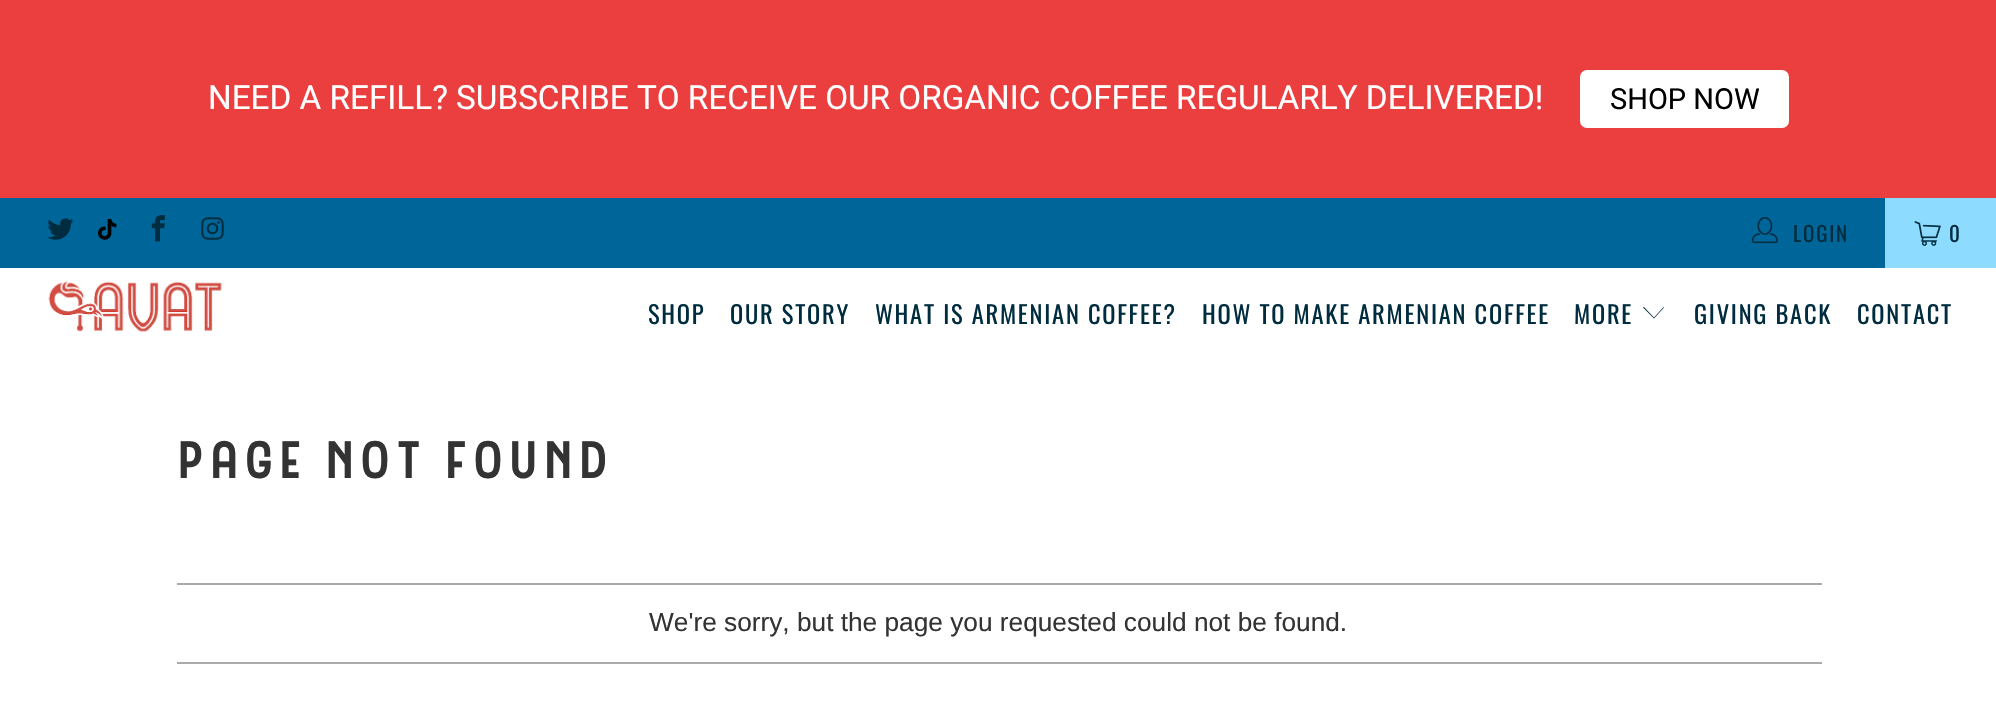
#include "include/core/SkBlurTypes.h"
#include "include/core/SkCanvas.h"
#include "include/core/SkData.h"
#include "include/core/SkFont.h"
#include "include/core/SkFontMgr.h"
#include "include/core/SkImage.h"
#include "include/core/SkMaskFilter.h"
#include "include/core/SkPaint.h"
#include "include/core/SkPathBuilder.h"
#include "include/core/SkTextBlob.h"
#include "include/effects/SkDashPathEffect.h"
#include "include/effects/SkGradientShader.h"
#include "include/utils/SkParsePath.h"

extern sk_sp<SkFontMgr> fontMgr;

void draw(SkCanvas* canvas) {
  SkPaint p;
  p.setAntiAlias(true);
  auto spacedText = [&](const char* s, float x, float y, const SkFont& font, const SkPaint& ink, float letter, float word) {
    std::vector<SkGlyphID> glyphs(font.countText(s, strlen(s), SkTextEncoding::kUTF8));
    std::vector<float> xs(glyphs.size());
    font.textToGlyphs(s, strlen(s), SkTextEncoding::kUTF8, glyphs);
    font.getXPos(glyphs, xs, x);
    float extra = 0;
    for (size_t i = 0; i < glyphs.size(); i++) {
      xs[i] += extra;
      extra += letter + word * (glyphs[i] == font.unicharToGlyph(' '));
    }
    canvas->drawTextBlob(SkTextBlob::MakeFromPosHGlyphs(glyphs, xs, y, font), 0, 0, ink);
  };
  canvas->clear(SK_ColorWHITE);
  p.setColor(SkColorSetRGB(235, 62, 62));
  canvas->drawRect(SkRect::MakeLTRB(0, 0, 1996, 198), p);
  p.setColor(SK_ColorWHITE);
  canvas->drawRoundRect(SkRect::MakeLTRB(1580, 70, 1789, 128), 7, 7, p);
  p.setColor(SkColorSetRGB(0, 102, 153));
  canvas->drawRect(SkRect::MakeLTRB(0, 198, 1885, 268), p);
  canvas->drawImageRect(SkImages::DeferredFromEncodedData(SkData::MakeFromFileName("images/1.png")), SkRect::MakeLTRB(47, 218, 74, 240), SkSamplingOptions());
  canvas->drawImageRect(SkImages::DeferredFromEncodedData(SkData::MakeFromFileName("images/2.png")), SkRect::MakeLTRB(98, 219, 117, 240), SkSamplingOptions());
  canvas->drawImageRect(SkImages::DeferredFromEncodedData(SkData::MakeFromFileName("images/3.png")), SkRect::MakeLTRB(151, 215, 165, 242), SkSamplingOptions());
  canvas->drawImageRect(SkImages::DeferredFromEncodedData(SkData::MakeFromFileName("images/4.png")), SkRect::MakeLTRB(201, 217, 224, 240), SkSamplingOptions());
  canvas->drawImageRect(SkImages::DeferredFromEncodedData(SkData::MakeFromFileName("images/5.png")), SkRect::MakeLTRB(1751, 216, 1778, 244), SkSamplingOptions());
  p.setColor(SkColorSetRGB(141, 220, 255));
  canvas->drawRect(SkRect::MakeLTRB(1885, 198, 1996, 268), p);
  canvas->drawImageRect(SkImages::DeferredFromEncodedData(SkData::MakeFromFileName("images/6.png")), SkRect::MakeLTRB(1914, 221, 1941, 246), SkSamplingOptions());
  canvas->drawImageRect(SkImages::DeferredFromEncodedData(SkData::MakeFromFileName("images/7.png")), SkRect::MakeLTRB(48, 281, 222, 332), SkSamplingOptions());
  p.setColor(SkColorSetRGB(0, 44, 63));
  canvas->drawPath(SkPathBuilder().moveTo(1654, 318.5f).lineTo(1643, 307.5f).lineTo(1644, 307).lineTo(1654, 317.5f).lineTo(1663.5f, 307).lineTo(1664, 307.5f).close().detach(), p);
  p.setColor(SkColorSetRGB(170, 170, 170));
  canvas->drawRect(SkRect::MakeLTRB(177, 583, 1822, 585), p);
  canvas->drawRect(SkRect::MakeLTRB(177, 662, 1822, 664), p);
  SkFont font1(fontMgr->matchFamilyStyle("Roboto", SkFontStyle::Normal()), 33.25f);
  font1.setSubpixel(true);
  p.setColor(SK_ColorWHITE);
  canvas->drawString("NEED A REFILL? SUBSCRIBE TO RECEIVE OUR ORGANIC COFFEE REGULARLY DELIVERED!", 208, 109, font1, p);
  SkFont font2(fontMgr->matchFamilyStyle("Roboto", SkFontStyle::Normal()), 29);
  font2.setSubpixel(true);
  p.setColor(SK_ColorBLACK);
  canvas->drawString("SHOP NOW", 1610, 109, font2, p);
  SkFont font3(fontMgr->matchFamilyStyle("Oswald", SkFontStyle::Normal()), 21);
  font3.setSubpixel(true);
  p.setColor(SkColorSetRGB(0, 44, 63));
  spacedText("LOGIN", 1793, 242, font3, p, 1.75f, 0);
  spacedText("0", 1949, 242, font3, p, 1.75f, 0);
  SkFont font4(fontMgr->matchFamilyStyle("Oswald", SkFontStyle::Normal()), 24.5f);
  font4.setSubpixel(true);
  spacedText("SHOP", 648, 324, font4, p, 1.75f, 0);
  spacedText("OUR STORY", 730, 324, font4, p, 1.75f, 0);
  spacedText("WHAT IS ARMENIAN COFFEE?", 875, 324, font4, p, 1.75f, 0);
  spacedText("HOW TO MAKE ARMENIAN COFFEE", 1202, 324, font4, p, 1.75f, 0);
  spacedText("MORE", 1574, 324, font4, p, 1.75f, 0);
  spacedText("GIVING BACK", 1694, 324, font4, p, 1.75f, 0);
  spacedText("CONTACT", 1857, 324, font4, p, 1.75f, 0);
  SkFont font5(fontMgr->matchFamilyStyle("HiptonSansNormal", SkFontStyle::Normal()), 52.5f);
  font5.setSubpixel(true);
  p.setColor(SkColorSetRGB(51, 51, 51));
  spacedText("PAGE NOT FOUND", 176, 478, font5, p, 3.5f, 0);
  SkFont font6(fontMgr->matchFamilyStyle("Liberation Sans", SkFontStyle::Normal()), 26.25f);
  font6.setSubpixel(true);
  canvas->drawString("We're sorry, but the page you requested could not be found.", 649, 631, font6, p);
}
